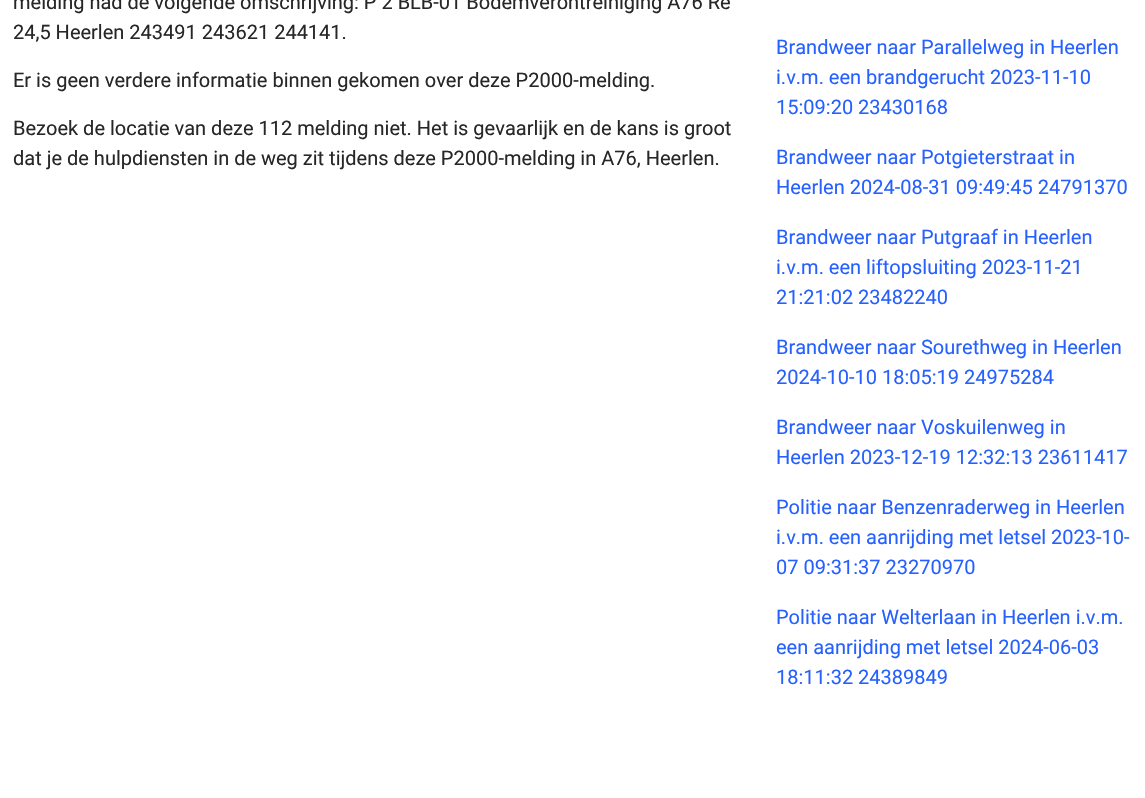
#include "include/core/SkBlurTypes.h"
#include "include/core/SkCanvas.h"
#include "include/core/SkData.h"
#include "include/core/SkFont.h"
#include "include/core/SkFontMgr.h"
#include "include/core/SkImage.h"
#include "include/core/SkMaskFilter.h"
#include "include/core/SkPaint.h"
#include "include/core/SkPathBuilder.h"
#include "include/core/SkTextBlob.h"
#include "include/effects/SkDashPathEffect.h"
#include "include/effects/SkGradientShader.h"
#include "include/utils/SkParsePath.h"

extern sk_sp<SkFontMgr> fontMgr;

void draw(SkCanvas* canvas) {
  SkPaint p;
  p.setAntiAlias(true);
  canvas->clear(SK_ColorWHITE);
  SkFont font1(fontMgr->matchFamilyStyle("Roboto", SkFontStyle::Normal()), 20);
  font1.setSubpixel(true);
  p.setColor(SkColorSetRGB(39, 39, 39));
  canvas->drawString("melding had de volgende omschrijving: P 2 BLB-01 Bodemverontreiniging A76 Re", 13, 9, font1, p);
  canvas->drawString("24,5 Heerlen 243491 243621 244141.", 13, 39, font1, p);
  canvas->drawString("Er is geen verdere informatie binnen gekomen over deze P2000-melding.", 13, 87, font1, p);
  canvas->drawString("Bezoek de locatie van deze 112 melding niet. Het is gevaarlijk en de kans is groot", 13, 135, font1, p);
  canvas->drawString("dat je de hulpdiensten in de weg zit tijdens deze P2000-melding in A76, Heerlen.", 13, 165, font1, p);
  p.setColor(SkColorSetRGB(38, 96, 255));
  canvas->drawString("Brandweer naar Parallelweg in Heerlen", 776, 54, font1, p);
  canvas->drawString("i.v.m. een brandgerucht 2023-11-10", 776, 84, font1, p);
  canvas->drawString("15:09:20 23430168", 776, 114, font1, p);
  canvas->drawString("Brandweer naar Potgieterstraat in", 776, 164, font1, p);
  canvas->drawString("Heerlen 2024-08-31 09:49:45 24791370", 776, 194, font1, p);
  canvas->drawString("Brandweer naar Putgraaf in Heerlen", 776, 244, font1, p);
  canvas->drawString("i.v.m. een liftopsluiting 2023-11-21", 776, 274, font1, p);
  canvas->drawString("21:21:02 23482240", 776, 304, font1, p);
  canvas->drawString("Brandweer naar Sourethweg in Heerlen", 776, 354, font1, p);
  canvas->drawString("2024-10-10 18:05:19 24975284", 776, 384, font1, p);
  canvas->drawString("Brandweer naar Voskuilenweg in", 776, 434, font1, p);
  canvas->drawString("Heerlen 2023-12-19 12:32:13 23611417", 776, 464, font1, p);
  canvas->drawString("Politie naar Benzenraderweg in Heerlen", 776, 514, font1, p);
  canvas->drawString("i.v.m. een aanrijding met letsel 2023-10-", 776, 544, font1, p);
  canvas->drawString("07 09:31:37 23270970", 776, 574, font1, p);
  canvas->drawString("Politie naar Welterlaan in Heerlen i.v.m.", 776, 624, font1, p);
  canvas->drawString("een aanrijding met letsel 2024-06-03", 776, 654, font1, p);
  canvas->drawString("18:11:32 24389849", 776, 684, font1, p);
}
